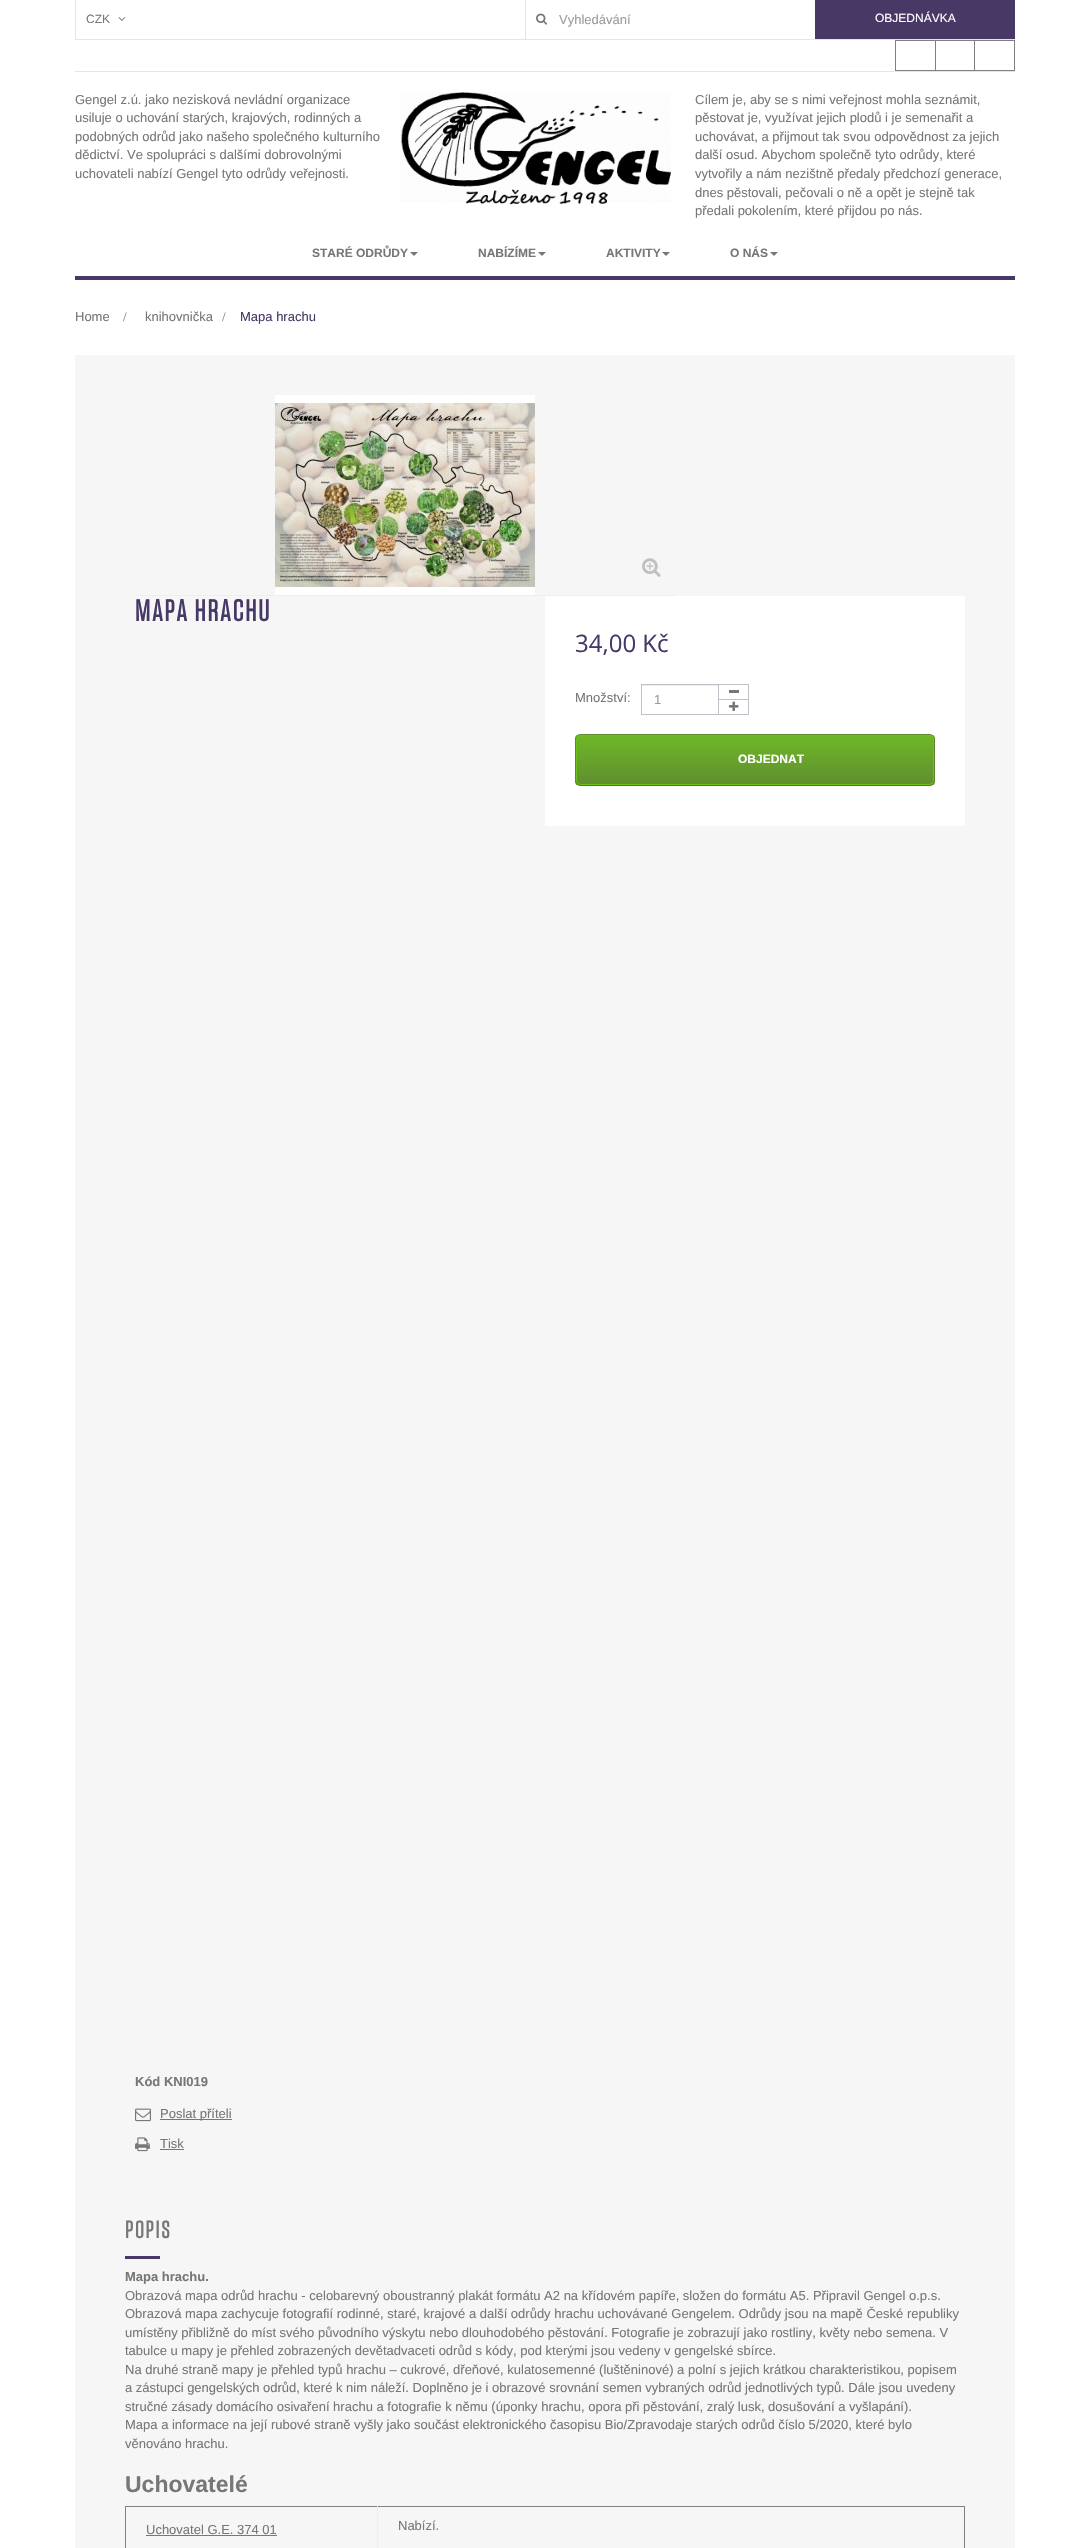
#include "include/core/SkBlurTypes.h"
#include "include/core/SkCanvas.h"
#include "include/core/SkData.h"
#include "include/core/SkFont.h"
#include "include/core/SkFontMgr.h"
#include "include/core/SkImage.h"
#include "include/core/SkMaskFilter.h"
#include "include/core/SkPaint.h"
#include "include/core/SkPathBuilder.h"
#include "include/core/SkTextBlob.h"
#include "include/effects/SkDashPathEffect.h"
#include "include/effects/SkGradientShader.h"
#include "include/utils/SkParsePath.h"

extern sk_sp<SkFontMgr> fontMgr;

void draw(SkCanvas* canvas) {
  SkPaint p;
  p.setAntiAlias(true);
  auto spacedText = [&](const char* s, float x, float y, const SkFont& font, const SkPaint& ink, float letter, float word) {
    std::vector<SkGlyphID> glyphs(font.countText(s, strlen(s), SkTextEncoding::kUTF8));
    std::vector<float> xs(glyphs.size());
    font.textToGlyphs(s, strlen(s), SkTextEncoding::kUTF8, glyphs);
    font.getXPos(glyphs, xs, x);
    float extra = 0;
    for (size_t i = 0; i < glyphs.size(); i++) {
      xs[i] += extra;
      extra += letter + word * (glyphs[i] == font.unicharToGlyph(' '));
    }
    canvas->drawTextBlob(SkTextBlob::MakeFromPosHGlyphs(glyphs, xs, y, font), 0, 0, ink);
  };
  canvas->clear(SK_ColorWHITE);
  p.setColor(SkColorSetRGB(229, 229, 229));
  canvas->drawRect(SkRect::MakeLTRB(75, 39, 1015, 40), p);
  canvas->drawRect(SkRect::MakeLTRB(75, 0, 76, 39), p);
  canvas->drawImageRect(SkImages::DeferredFromEncodedData(SkData::MakeFromFileName("images/1.png")), SkRect::MakeLTRB(118, 17, 126, 21), SkSamplingOptions());
  canvas->drawRect(SkRect::MakeLTRB(525, 0, 526, 39), p);
  canvas->drawImageRect(SkImages::DeferredFromEncodedData(SkData::MakeFromFileName("images/2.png")), SkRect::MakeLTRB(536, 13, 547, 25), SkSamplingOptions());
  p.setColor(SkColorSetRGB(72, 56, 101));
  canvas->drawRect(SkRect::MakeLTRB(815, 0, 1015, 39), p);
  p.setColor(SkColorSetRGB(229, 229, 229));
  canvas->drawRect(SkRect::MakeLTRB(75, 71, 1015, 72), p);
  p.setColor(SkColorSetRGB(128, 128, 128));
  canvas->drawRect(SkRect::MakeLTRB(974, 40, 1015, 41), p);
  canvas->drawRect(SkRect::MakeLTRB(1014, 40, 1015, 71), p);
  canvas->drawRect(SkRect::MakeLTRB(974, 70, 1015, 71), p);
  canvas->drawRect(SkRect::MakeLTRB(974, 40, 975, 71), p);
  canvas->drawRect(SkRect::MakeLTRB(935, 40, 975, 41), p);
  canvas->drawRect(SkRect::MakeLTRB(935, 70, 975, 71), p);
  canvas->drawRect(SkRect::MakeLTRB(935, 40, 936, 71), p);
  canvas->drawRect(SkRect::MakeLTRB(895, 40, 936, 41), p);
  canvas->drawRect(SkRect::MakeLTRB(895, 70, 936, 71), p);
  canvas->drawRect(SkRect::MakeLTRB(895, 40, 896, 71), p);
  canvas->drawImageRect(SkImages::DeferredFromEncodedData(SkData::MakeFromFileName("images/3.png")), SkRect::MakeLTRB(400, 92, 671, 205), SkSamplingOptions());
  p.setColor(SkColorSetRGB(72, 56, 101));
  canvas->drawRect(SkRect::MakeLTRB(75, 276, 1015, 280), p);
  p.setColor(SkColorSetRGB(119, 119, 119));
  canvas->drawPath(SkPathBuilder().moveTo(410, 252).lineTo(418, 252).lineTo(414, 256).close().detach(), p);
  canvas->drawPath(SkPathBuilder().moveTo(538, 252).lineTo(546, 252).lineTo(542, 256).close().detach(), p);
  canvas->drawPath(SkPathBuilder().moveTo(662, 252).lineTo(670, 252).lineTo(666, 256).close().detach(), p);
  canvas->drawPath(SkPathBuilder().moveTo(770, 252).lineTo(778, 252).lineTo(774, 256).close().detach(), p);
  p.setColor(SkColorSetRGB(246, 246, 246));
  canvas->drawRect(SkRect::MakeLTRB(75, 355, 1015, 2548), p);
  p.setColor(SkColorSetRGB(238, 238, 238));
  canvas->drawRect(SkRect::MakeLTRB(135, 595, 675, 596), p);
  canvas->drawImageRect(SkImages::DeferredFromEncodedData(SkData::MakeFromFileName("images/4.png")), SkRect::MakeLTRB(275, 395, 535, 595), SkSamplingOptions());
  canvas->drawImageRect(SkImages::DeferredFromEncodedData(SkData::MakeFromFileName("images/5.png")), SkRect::MakeLTRB(642, 558, 661, 577), SkSamplingOptions());
  canvas->drawImageRect(SkImages::DeferredFromEncodedData(SkData::MakeFromFileName("images/6.png")), SkRect::MakeLTRB(135, 2108, 151, 2122), SkSamplingOptions());
  p.setColor(SkColorSetRGB(119, 119, 119));
  canvas->drawRect(SkRect::MakeLTRB(160, 2119, 232, 2120), p);
  canvas->drawImageRect(SkImages::DeferredFromEncodedData(SkData::MakeFromFileName("images/7.png")), SkRect::MakeLTRB(135, 2137, 150, 2152), SkSamplingOptions());
  canvas->drawRect(SkRect::MakeLTRB(160, 2149, 184, 2150), p);
  p.setColor(SK_ColorWHITE);
  canvas->drawRect(SkRect::MakeLTRB(545, 596, 965, 826), p);
  p.setColor(SkColorSetRGB(236, 236, 236));
  canvas->drawRect(SkRect::MakeLTRB(642, 685, 718, 686), p);
  p.setStyle(SkPaint::kStroke_Style);
  p.setStrokeWidth(1);
  p.setColor(SkColorSetRGB(189, 194, 201));
  canvas->drawRect(SkRect::MakeLTRB(641.5f, 684.5f, 718.5f, 714.5f), p);
  canvas->drawRect(SkRect::MakeLTRB(718.5f, 684.5f, 748.5f, 699.5f), p);
  p.setStyle(SkPaint::kFill_Style);
  p.setColor(SkColorSetRGB(119, 119, 119));
  canvas->drawRect(SkRect::MakeLTRB(729, 690, 739, 693), p);
  p.setStyle(SkPaint::kStroke_Style);
  p.setColor(SkColorSetRGB(189, 194, 201));
  canvas->drawRect(SkRect::MakeLTRB(718.5f, 699.5f, 748.5f, 714.5f), p);
  canvas->drawImageRect(SkImages::DeferredFromEncodedData(SkData::MakeFromFileName("images/8.png")), SkRect::MakeLTRB(729, 701, 739, 711), SkSamplingOptions());
  canvas->save();
  canvas->clipPath(SkPathBuilder().moveTo(580, 734).lineTo(930, 734).cubicTo(933, 734, 935, 736, 935, 739).lineTo(935, 781).cubicTo(935, 784, 933, 786, 930, 786).lineTo(580, 786).cubicTo(577, 786, 575, 784, 575, 781).lineTo(575, 739).cubicTo(575, 736, 577, 734, 580, 734).close().detach(), true);
  p.setStyle(SkPaint::kFill_Style);
  {
    const SkColor colors[] = {SkColorSetRGB(111, 184, 40), SkColorSetRGB(95, 142, 47)};
    const float stops[] = {0, 1};
    const SkPoint ends[] = {{755, 735}, {755, 785}};
    p.setShader(SkGradientShader::MakeLinear(ends, colors, stops, 2, SkTileMode::kClamp));
    p.setAlpha(255);
  }
  canvas->drawRect(SkRect::MakeLTRB(575, 735, 935, 785), p);
  canvas->restore();
  p.setStyle(SkPaint::kStroke_Style);
  p.setShader(nullptr);
  p.setColor(SkColorSetRGB(95, 140, 47));
  canvas->drawPath(SkPathBuilder().moveTo(577, 736).cubicTo(577.5f, 735, 579, 734.5f, 580, 734.5f).lineTo(930, 734.5f).cubicTo(931, 734.5f, 932.5f, 735, 933, 736).detach(), p);
  p.setColor(SkColorSetRGB(95, 134, 47));
  canvas->drawPath(SkPathBuilder().moveTo(933, 736).cubicTo(934, 736.5f, 934.5f, 738, 934.5f, 739).lineTo(934.5f, 781).cubicTo(934.5f, 782, 934, 783.5f, 933, 784).detach(), p);
  p.setColor(SkColorSetRGB(79, 118, 47));
  canvas->drawPath(SkPathBuilder().moveTo(933, 784).cubicTo(932.5f, 785, 931, 785.5f, 930, 785.5f).lineTo(580, 785.5f).cubicTo(579, 785.5f, 577.5f, 785, 577, 784).detach(), p);
  p.setColor(SkColorSetRGB(95, 134, 47));
  canvas->drawPath(SkPathBuilder().moveTo(577, 784).cubicTo(576, 783.5f, 575.5f, 782, 575.5f, 781).lineTo(575.5f, 739).cubicTo(575.5f, 738, 576, 736.5f, 577, 736).detach(), p);
  p.setColor(SkColorSetRGB(105, 196, 18));
  canvas->drawRoundRect(SkRect::MakeLTRB(576.5f, 735.5f, 933.5f, 784.5f), 4.5f, 4.5f, p);
  p.setStyle(SkPaint::kFill_Style);
  p.setColor(SkColorSetRGB(72, 56, 101));
  canvas->drawRect(SkRect::MakeLTRB(125, 2256, 160, 2259), p);
  p.setColor(SkColorSetRGB(128, 128, 128));
  canvas->drawRect(SkRect::MakeLTRB(125, 2506, 965, 2507), p);
  p.setColor(SkColorSetRGB(238, 238, 238));
  canvas->drawRect(SkRect::MakeLTRB(377, 2506, 378, 2548), p);
  p.setColor(SkColorSetRGB(128, 128, 128));
  canvas->drawRect(SkRect::MakeLTRB(125, 2506, 126, 2548), p);
  p.setColor(SkColorSetRGB(119, 119, 119));
  canvas->drawRect(SkRect::MakeLTRB(146, 2535, 277, 2536), p);
  p.setColor(SkColorSetRGB(128, 128, 128));
  canvas->drawRect(SkRect::MakeLTRB(964, 2506, 965, 2548), p);
  SkFont font1(fontMgr->matchFamilyStyle("Liberation Sans", SkFontStyle::Normal()), 12);
  font1.setSubpixel(true);
  p.setColor(SkColorSetRGB(119, 119, 119));
  canvas->drawString("CZK", 86, 23, font1, p);
  SkFont font2(fontMgr->matchFamilyStyle("Liberation Sans", SkFontStyle::Normal()), 13);
  font2.setSubpixel(true);
  p.setColor(SkColorSetRGB(156, 156, 156));
  canvas->drawString("Vyhledávání", 559, 24, font2, p);
  p.setColor(SK_ColorWHITE);
  canvas->drawString("OBJEDNÁVKA", 875, 22, font1, p);
  p.setColor(SkColorSetRGB(119, 119, 119));
  canvas->drawString("Gengel z.ú. jako nezisková nevládní organizace", 75, 104, font2, p);
  canvas->drawString("usiluje o uchování starých, krajových, rodinných a", 75, 122, font2, p);
  canvas->drawString("podobných odrůd jako našeho společného kulturního", 75, 141, font2, p);
  canvas->drawString("dědictví. Ve spolupráci s dalšími dobrovolnými", 75, 159, font2, p);
  canvas->drawString("uchovateli nabízí Gengel tyto odrůdy veřejnosti.", 75, 178, font2, p);
  canvas->drawString("Cílem je, aby se s nimi veřejnost mohla seznámit,", 695, 104, font2, p);
  canvas->drawString("pěstovat je, využívat jejich plodů i je semenařit a", 695, 122, font2, p);
  canvas->drawString("uchovávat, a přijmout tak svou odpovědnost za jejich", 695, 141, font2, p);
  canvas->drawString("další osud. Abychom společně tyto odrůdy, které", 695, 159, font2, p);
  canvas->drawString("vytvořily a nám nezištně předaly předchozí generace,", 695, 178, font2, p);
  canvas->drawString("dnes pěstovali, pečovali o ně a opět je stejně tak", 695, 197, font2, p);
  canvas->drawString("předali pokolením, které přijdou po nás.", 695, 215, font2, p);
  SkFont font3(fontMgr->matchFamilyStyle("Liberation Sans", SkFontStyle::Bold()), 12);
  font3.setSubpixel(true);
  canvas->drawString("STARÉ ODRŮDY", 312, 257, font3, p);
  canvas->drawString("NABÍZÍME", 478, 257, font3, p);
  canvas->drawString("AKTIVITY", 606, 257, font3, p);
  canvas->drawString("O NÁS", 730, 257, font3, p);
  canvas->drawString("Home", 75, 321, font2, p);
  SkFont font4(fontMgr->matchFamilyStyle("Liberation Serif", SkFontStyle::Normal()), 13);
  font4.setSubpixel(true);
  canvas->drawString("/", 123, 321, font4, p);
  canvas->drawString("knihovnička", 145, 321, font2, p);
  canvas->drawString("/", 222, 321, font4, p);
  p.setColor(SkColorSetRGB(72, 56, 101));
  canvas->drawString("Mapa hrachu", 240, 321, font2, p);
  SkFont font5(fontMgr->matchFamilyStyle("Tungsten", SkFontStyle::Bold()), 30);
  font5.setSubpixel(true);
  spacedText("MAPA HRACHU", 135, 621, font5, p, 2, 0);
  SkFont font6(fontMgr->matchFamilyStyle("Liberation Sans", SkFontStyle::Bold()), 13);
  font6.setSubpixel(true);
  p.setColor(SkColorSetRGB(119, 119, 119));
  canvas->drawString("Kód KNI019", 135, 2086, font6, p);
  canvas->drawString("Poslat příteli", 160, 2118, font2, p);
  canvas->drawString("Tisk", 160, 2148, font2, p);
  SkFont font7(fontMgr->matchFamilyStyle("Open Sans", SkFontStyle::Normal()), 24);
  font7.setSubpixel(true);
  p.setColor(SkColorSetRGB(72, 56, 101));
  canvas->drawString("34,00 Kč", 575, 652, font7, p);
  p.setColor(SkColorSetRGB(119, 119, 119));
  canvas->drawString("Množství:", 575, 702, font2, p);
  p.setColor(SkColorSetRGB(156, 156, 156));
  canvas->drawString("1", 654, 704, font2, p);
  p.setColor(SK_ColorWHITE);
  canvas->drawString("OBJEDNAT", 738, 763, font3, p);
  SkFont font8(fontMgr->matchFamilyStyle("Tungsten", SkFontStyle::Bold()), 24);
  font8.setSubpixel(true);
  p.setColor(SkColorSetRGB(119, 119, 119));
  spacedText("POPIS", 125, 2238, font8, p, 2, 0);
  canvas->drawString("Mapa hrachu.", 125, 2281, font6, p);
  canvas->drawString("Obrazová mapa odrůd hrachu - celobarevný oboustranný plakát formátu A2 na křídovém papíře, složen do formátu A5. Připravil Gengel o.p.s.", 125, 2300, font2, p);
  canvas->drawString("Obrazová mapa zachycuje fotografií rodinné, staré, krajové a další odrůdy hrachu uchovávané Gengelem. Odrůdy jsou na mapě České republiky", 125, 2318, font2, p);
  canvas->drawString("umístěny přibližně do míst svého původního výskytu nebo dlouhodobého pěstování. Fotografie je zobrazují jako rostliny, květy nebo semena. V", 125, 2337, font2, p);
  canvas->drawString("tabulce u mapy je přehled zobrazených devětadvaceti odrůd s kódy, pod kterými jsou vedeny v gengelské sbírce.", 125, 2355, font2, p);
  canvas->drawString("Na druhé straně mapy je přehled typů hrachu – cukrové, dřeňové, kulatosemenné (luštěninové) a polní s jejich krátkou charakteristikou, popisem", 125, 2374, font2, p);
  canvas->drawString("a zástupci gengelských odrůd, které k nim náleží. Doplněno je i obrazové srovnání semen vybraných odrůd jednotlivých typů. Dále jsou uvedeny", 125, 2392, font2, p);
  canvas->drawString("stručné zásady domácího osivaření hrachu a fotografie k němu (úponky hrachu, opora při pěstování, zralý lusk, dosušování a vyšlapání).", 125, 2411, font2, p);
  canvas->drawString("Mapa a informace na její rubové straně vyšly jako součást elektronického časopisu Bio/Zpravodaje starých odrůd číslo 5/2020, které bylo", 125, 2429, font2, p);
  canvas->drawString("věnováno hrachu.", 125, 2448, font2, p);
  SkFont font9(fontMgr->matchFamilyStyle("Liberation Sans", SkFontStyle::Bold()), 23);
  font9.setSubpixel(true);
  canvas->drawString("Uchovatelé", 125, 2492, font9, p);
  canvas->drawString("Uchovatel G.E. 374 01", 146, 2534, font2, p);
  canvas->drawString("Nabízí.", 398, 2530, font2, p);
}
